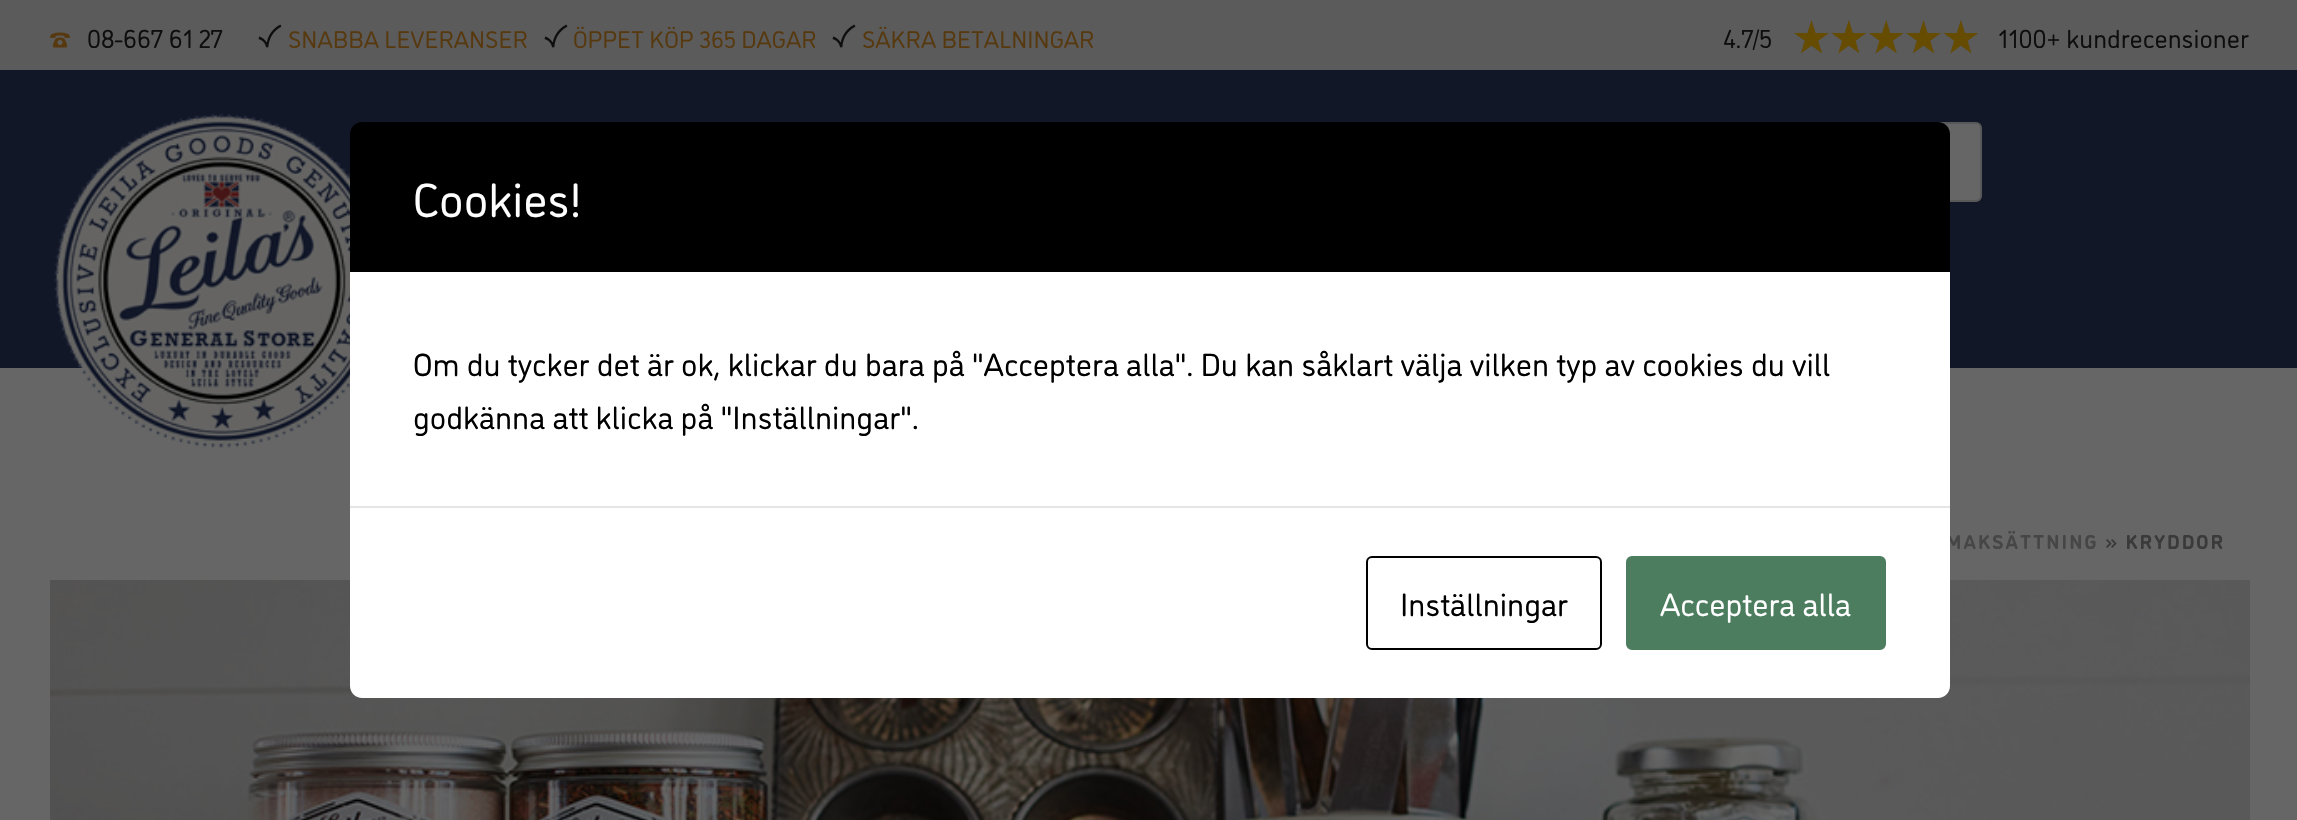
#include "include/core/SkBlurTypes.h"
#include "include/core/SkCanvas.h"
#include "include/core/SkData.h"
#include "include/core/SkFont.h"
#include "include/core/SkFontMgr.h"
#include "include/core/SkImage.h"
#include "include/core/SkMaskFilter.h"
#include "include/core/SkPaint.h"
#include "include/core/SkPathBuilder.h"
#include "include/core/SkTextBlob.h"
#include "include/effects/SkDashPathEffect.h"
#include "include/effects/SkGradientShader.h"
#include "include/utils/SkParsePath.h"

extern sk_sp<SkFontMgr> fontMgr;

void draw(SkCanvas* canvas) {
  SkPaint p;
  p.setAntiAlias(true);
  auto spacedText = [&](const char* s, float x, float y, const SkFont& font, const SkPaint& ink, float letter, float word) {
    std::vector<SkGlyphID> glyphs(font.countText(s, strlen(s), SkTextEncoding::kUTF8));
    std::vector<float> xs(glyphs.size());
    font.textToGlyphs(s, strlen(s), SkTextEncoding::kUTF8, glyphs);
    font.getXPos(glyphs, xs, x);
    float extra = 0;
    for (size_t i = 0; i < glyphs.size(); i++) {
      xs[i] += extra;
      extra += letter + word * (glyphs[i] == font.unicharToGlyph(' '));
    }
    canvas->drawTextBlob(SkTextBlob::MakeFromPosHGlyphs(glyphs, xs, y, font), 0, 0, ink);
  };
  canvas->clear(SkColorSetRGB(102, 102, 102));
  p.setColor(SkColorSetRGB(91, 91, 91));
  canvas->drawRect(SkRect::MakeLTRB(0, 0, 2297, 70), p);
  canvas->drawImageRect(SkImages::DeferredFromEncodedData(SkData::MakeFromFileName("images/1.png")), SkRect::MakeLTRB(50, 32, 70, 48), SkSamplingOptions());
  canvas->drawImageRect(SkImages::DeferredFromEncodedData(SkData::MakeFromFileName("images/2.png")), SkRect::MakeLTRB(258, 24, 282, 48), SkSamplingOptions());
  canvas->drawImageRect(SkImages::DeferredFromEncodedData(SkData::MakeFromFileName("images/2.png")), SkRect::MakeLTRB(544, 24, 568, 48), SkSamplingOptions());
  canvas->drawImageRect(SkImages::DeferredFromEncodedData(SkData::MakeFromFileName("images/2.png")), SkRect::MakeLTRB(832, 24, 856, 48), SkSamplingOptions());
  canvas->drawImageRect(SkImages::DeferredFromEncodedData(SkData::MakeFromFileName("images/3.png")), SkRect::MakeLTRB(1794, 20, 1978, 53), SkSamplingOptions());
  canvas->drawImageRect(SkImages::DeferredFromEncodedData(SkData::MakeFromFileName("images/4.png")), SkRect::MakeLTRB(1794, 20, 1978, 54), SkSamplingOptions());
  p.setColor(SkColorSetRGB(18, 23, 40));
  canvas->drawRect(SkRect::MakeLTRB(0, 70, 2297, 368), p);
  canvas->drawImageRect(SkImages::DeferredFromEncodedData(SkData::MakeFromFileName("images/5.png")), SkRect::MakeLTRB(54, 113, 350, 448), SkSamplingOptions());
  p.setColor(SkColorSetRGB(102, 102, 102));
  canvas->drawRoundRect(SkRect::MakeLTRB(1523, 123, 1981, 201), 5, 5, p);
  p.setStyle(SkPaint::kStroke_Style);
  p.setStrokeWidth(2);
  p.setColor(SkColorSetRGB(88, 88, 88));
  canvas->drawRoundRect(SkRect::MakeLTRB(1523, 123, 1981, 201), 5, 5, p);
  canvas->drawImageRect(SkImages::DeferredFromEncodedData(SkData::MakeFromFileName("images/6.png")), SkRect::MakeLTRB(50, 580, 2250, 820), SkSamplingOptions());
  p.setStyle(SkPaint::kFill_Style);
  p.setColor(SK_ColorBLACK);
  canvas->drawPath(SkPathBuilder().moveTo(362, 122).lineTo(1938, 122).cubicTo(1944.5f, 122, 1950, 127.5f, 1950, 134).lineTo(1950, 272).lineTo(350, 272).lineTo(350, 134).cubicTo(350, 127.5f, 355.5f, 122, 362, 122).close().detach(), p);
  p.setColor(SK_ColorWHITE);
  canvas->drawRect(SkRect::MakeLTRB(350, 272, 1950, 506), p);
  SkFont font1(fontMgr->matchFamilyStyle("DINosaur", SkFontStyle::Normal()), 26);
  font1.setSubpixel(true);
  p.setColor(SkColorSetRGB(14, 14, 14));
  canvas->drawString("08-667 61 27", 87, 48, font1, p);
  SkFont font2(fontMgr->matchFamilyStyle("DINosaur", SkFontStyle::Normal()), 24);
  font2.setSubpixel(true);
  p.setColor(SkColorSetRGB(87, 57, 16));
  canvas->drawString("SNABBA LEVERANSER", 288, 48, font2, p);
  canvas->drawString("ÖPPET KÖP 365 DAGAR", 573, 48, font2, p);
  canvas->drawString("SÄKRA BETALNINGAR", 862, 48, font2, p);
  p.setColor(SkColorSetRGB(14, 14, 14));
  canvas->drawString("4.7/5", 1723, 48, font1, p);
  canvas->drawString("1100+ kundrecensioner", 1998, 48, font1, p);
  SkFont font3(fontMgr->matchFamilyStyle("DINosaur", SkFontStyle::Bold()), 20);
  font3.setSubpixel(true);
  p.setColor(SkColorSetRGB(70, 70, 70));
  spacedText("MAKSÄTTNING", 1946, 549, font3, p, 2, 0);
  p.setColor(SkColorSetRGB(58, 58, 58));
  spacedText("» KRYDDOR", 2105, 549, font3, p, 2, 0);
  SkFont font4(fontMgr->matchFamilyStyle("DINosaur", SkFontStyle::Normal()), 48);
  font4.setSubpixel(true);
  p.setColor(SK_ColorWHITE);
  canvas->drawString("Cookies!", 413, 217, font4, p);
  SkFont font5(fontMgr->matchFamilyStyle("DINosaur", SkFontStyle::Normal()), 32);
  font5.setSubpixel(true);
  p.setColor(SK_ColorBLACK);
  canvas->drawString("Om du tycker det är ok, klickar du bara på \"Acceptera alla\". Du kan såklart välja vilken typ av cookies du vill", 413, 376, font5, p);
  canvas->drawString("godkänna att klicka på \"Inställningar\".", 413, 429, font5, p);
  p.setColor(SK_ColorWHITE);
  canvas->drawPath(SkPathBuilder().moveTo(350, 506).lineTo(1950, 506).lineTo(1950, 686).cubicTo(1950, 692.5f, 1944.5f, 698, 1938, 698).lineTo(362, 698).cubicTo(355.5f, 698, 350, 692.5f, 350, 686).close().detach(), p);
  p.setColor(SkColorSetRGB(230, 230, 230));
  canvas->drawRect(SkRect::MakeLTRB(350, 506, 1950, 508), p);
  p.setStyle(SkPaint::kStroke_Style);
  p.setColor(SK_ColorBLACK);
  canvas->drawRoundRect(SkRect::MakeLTRB(1367, 557, 1601, 649), 5, 5, p);
  p.setStyle(SkPaint::kFill_Style);
  canvas->drawString("Inställningar", 1400, 616, font5, p);
  p.setColor(SkColorSetRGB(75, 125, 94));
  canvas->drawRoundRect(SkRect::MakeLTRB(1627, 557, 1885, 649), 5, 5, p);
  p.setStyle(SkPaint::kStroke_Style);
  canvas->drawRoundRect(SkRect::MakeLTRB(1627, 557, 1885, 649), 5, 5, p);
  p.setStyle(SkPaint::kFill_Style);
  p.setColor(SK_ColorWHITE);
  canvas->drawString("Acceptera alla", 1660, 616, font5, p);
}
